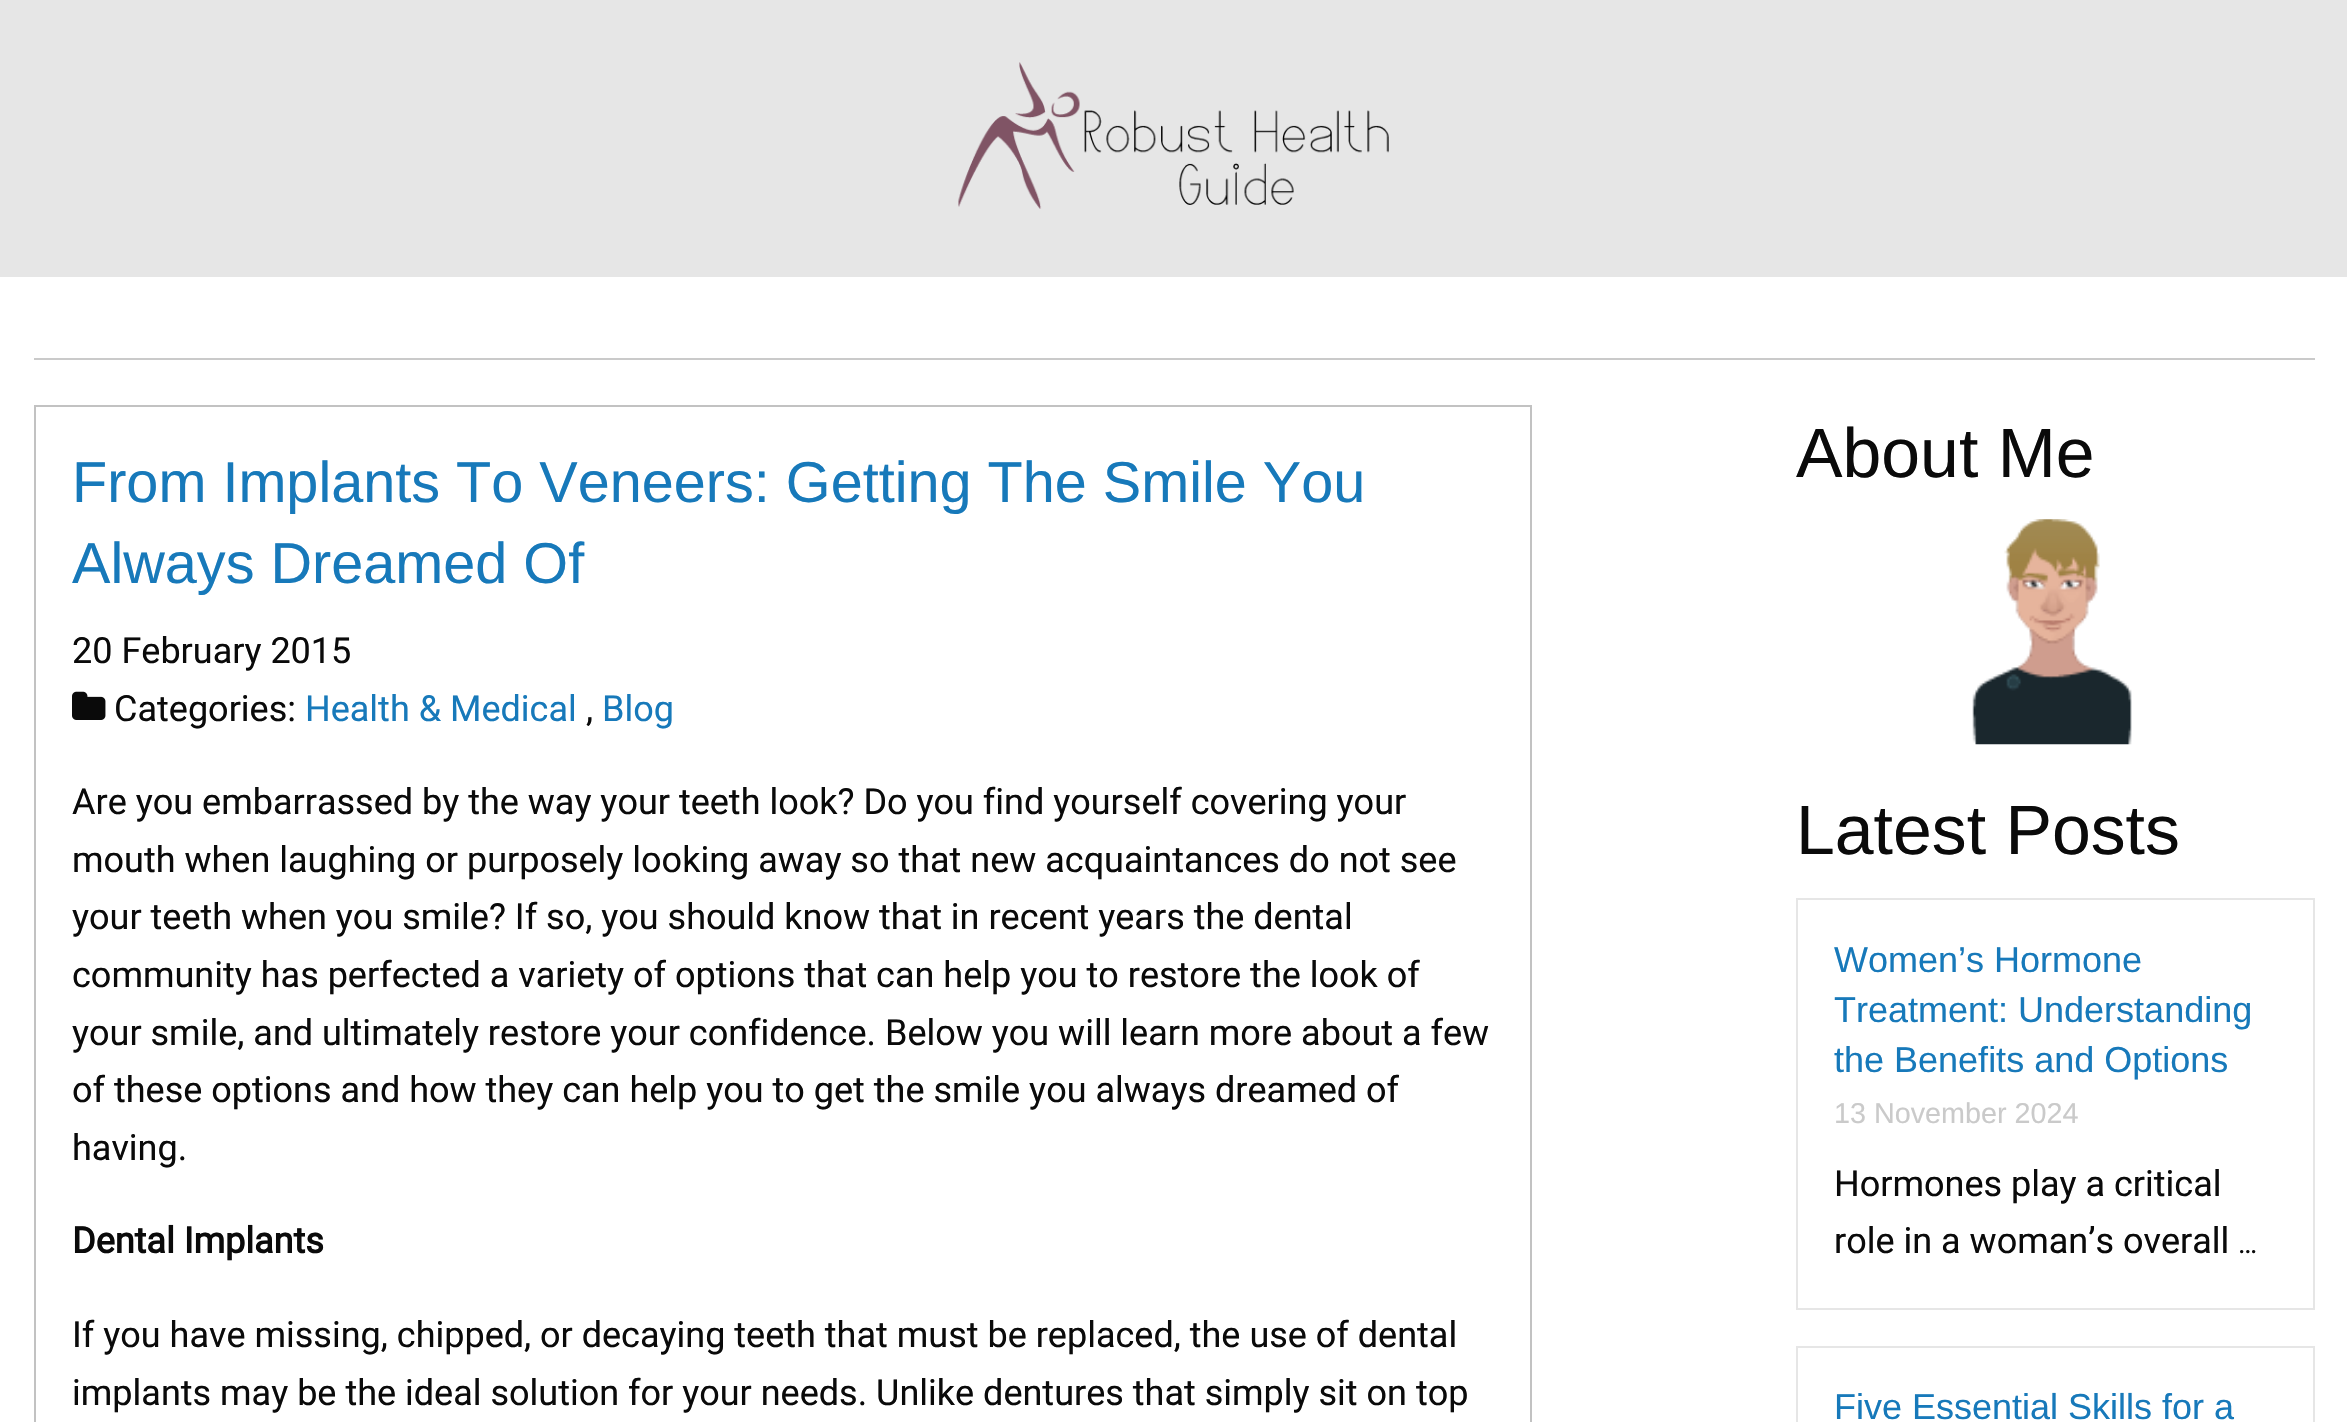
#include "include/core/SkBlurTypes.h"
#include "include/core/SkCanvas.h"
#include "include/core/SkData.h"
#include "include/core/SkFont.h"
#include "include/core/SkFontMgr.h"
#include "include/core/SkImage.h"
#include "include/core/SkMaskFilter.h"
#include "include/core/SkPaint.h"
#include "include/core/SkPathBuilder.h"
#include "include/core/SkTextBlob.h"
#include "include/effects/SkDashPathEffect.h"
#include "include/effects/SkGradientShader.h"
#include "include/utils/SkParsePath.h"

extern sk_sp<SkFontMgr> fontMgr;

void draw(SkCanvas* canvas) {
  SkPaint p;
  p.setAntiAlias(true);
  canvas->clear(SK_ColorWHITE);
  p.setColor(SkColorSetRGB(230, 230, 230));
  canvas->drawRect(SkRect::MakeLTRB(0, 0, 2347, 277), p);
  canvas->drawImageRect(SkImages::DeferredFromEncodedData(SkData::MakeFromFileName("images/1.png")), SkRect::MakeLTRB(958, 62, 1389, 209), SkSamplingOptions());
  p.setColor(SkColorSetRGB(202, 202, 202));
  canvas->drawRect(SkRect::MakeLTRB(34, 358, 2315, 360), p);
  p.setStyle(SkPaint::kStroke_Style);
  p.setStrokeWidth(2);
  p.setColor(SkColorSetRGB(194, 194, 194));
  canvas->drawRect(SkRect::MakeLTRB(35, 406, 1531, 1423), p);
  canvas->drawImageRect(SkImages::DeferredFromEncodedData(SkData::MakeFromFileName("images/2.png")), SkRect::MakeLTRB(72, 691, 106, 720), SkSamplingOptions());
  canvas->drawImageRect(SkImages::DeferredFromEncodedData(SkData::MakeFromFileName("images/3.png")), SkRect::MakeLTRB(1972, 519, 2132, 745), SkSamplingOptions());
  p.setColor(SkColorSetRGB(230, 230, 230));
  canvas->drawRect(SkRect::MakeLTRB(1797, 899, 2314, 1309), p);
  canvas->drawRect(SkRect::MakeLTRB(1797, 1347, 2314, 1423), p);
  SkFont font1(fontMgr->matchFamilyStyle("Liberation Sans", SkFontStyle::Normal()), 57.6f);
  font1.setSubpixel(true);
  p.setStyle(SkPaint::kFill_Style);
  p.setColor(SkColorSetRGB(23, 121, 186));
  canvas->drawString("From Implants To Veneers: Getting The Smile You", 72, 502, font1, p);
  canvas->drawString("Always Dreamed Of", 72, 583, font1, p);
  SkFont font2(fontMgr->matchFamilyStyle("Roboto", SkFontStyle::Normal()), 36);
  font2.setSubpixel(true);
  p.setColor(SkColorSetRGB(10, 10, 10));
  canvas->drawString("20 February 2015", 72, 663, font2, p);
  canvas->drawString("Categories:", 114, 721, font2, p);
  p.setColor(SkColorSetRGB(23, 121, 186));
  canvas->drawString("Health & Medical", 305, 721, font2, p);
  p.setColor(SkColorSetRGB(10, 10, 10));
  canvas->drawString(",", 586, 721, font2, p);
  p.setColor(SkColorSetRGB(23, 121, 186));
  canvas->drawString("Blog", 602, 721, font2, p);
  p.setColor(SkColorSetRGB(10, 10, 10));
  canvas->drawString("Are you embarrassed by the way your teeth look? Do you find yourself covering your", 72, 814, font2, p);
  canvas->drawString("mouth when laughing or purposely looking away so that new acquaintances do not see", 72, 872, font2, p);
  canvas->drawString("your teeth when you smile? If so, you should know that in recent years the dental", 72, 929, font2, p);
  canvas->drawString("community has perfected a variety of options that can help you to restore the look of", 72, 987, font2, p);
  canvas->drawString("your smile, and ultimately restore your confidence. Below you will learn more about a few", 72, 1045, font2, p);
  canvas->drawString("of these options and how they can help you to get the smile you always dreamed of", 72, 1102, font2, p);
  canvas->drawString("having.", 72, 1160, font2, p);
  SkFont font3(fontMgr->matchFamilyStyle("Roboto", SkFontStyle::Bold()), 36);
  font3.setSubpixel(true);
  canvas->drawString("Dental Implants", 72, 1253, font3, p);
  canvas->drawString("If you have missing, chipped, or decaying teeth that must be replaced, the use of dental", 72, 1347, font2, p);
  canvas->drawString("implants may be the ideal solution for your needs. Unlike dentures that simply sit on top", 72, 1405, font2, p);
  SkFont font4(fontMgr->matchFamilyStyle("Liberation Sans", SkFontStyle::Normal()), 69.75f);
  font4.setSubpixel(true);
  canvas->drawString("About Me", 1796, 477, font4, p);
  canvas->drawString("Latest Posts", 1796, 854, font4, p);
  SkFont font5(fontMgr->matchFamilyStyle("Liberation Sans", SkFontStyle::Normal()), 36);
  font5.setSubpixel(true);
  p.setColor(SkColorSetRGB(23, 121, 186));
  canvas->drawString("Women’s Hormone", 1834, 972, font5, p);
  canvas->drawString("Treatment: Understanding", 1834, 1022, font5, p);
  canvas->drawString("the Benefits and Options", 1834, 1072, font5, p);
  SkFont font6(fontMgr->matchFamilyStyle("Liberation Sans", SkFontStyle::Normal()), 28.75f);
  font6.setSubpixel(true);
  p.setColor(SkColorSetRGB(202, 202, 202));
  canvas->drawString("13 November 2024", 1834, 1123, font6, p);
  p.setColor(SkColorSetRGB(10, 10, 10));
  canvas->drawString("Hormones play a critical", 1834, 1196, font2, p);
  canvas->drawString("role in a woman’s overall", 1834, 1253, font2, p);
  SkFont font7(fontMgr->matchFamilyStyle("Roboto", SkFontStyle::Normal()), 28.75f);
  font7.setSubpixel(true);
  canvas->drawString("…", 2238, 1253, font7, p);
  p.setColor(SkColorSetRGB(23, 121, 186));
  canvas->drawString("Five Essential Skills for a", 1834, 1419, font5, p);
}
